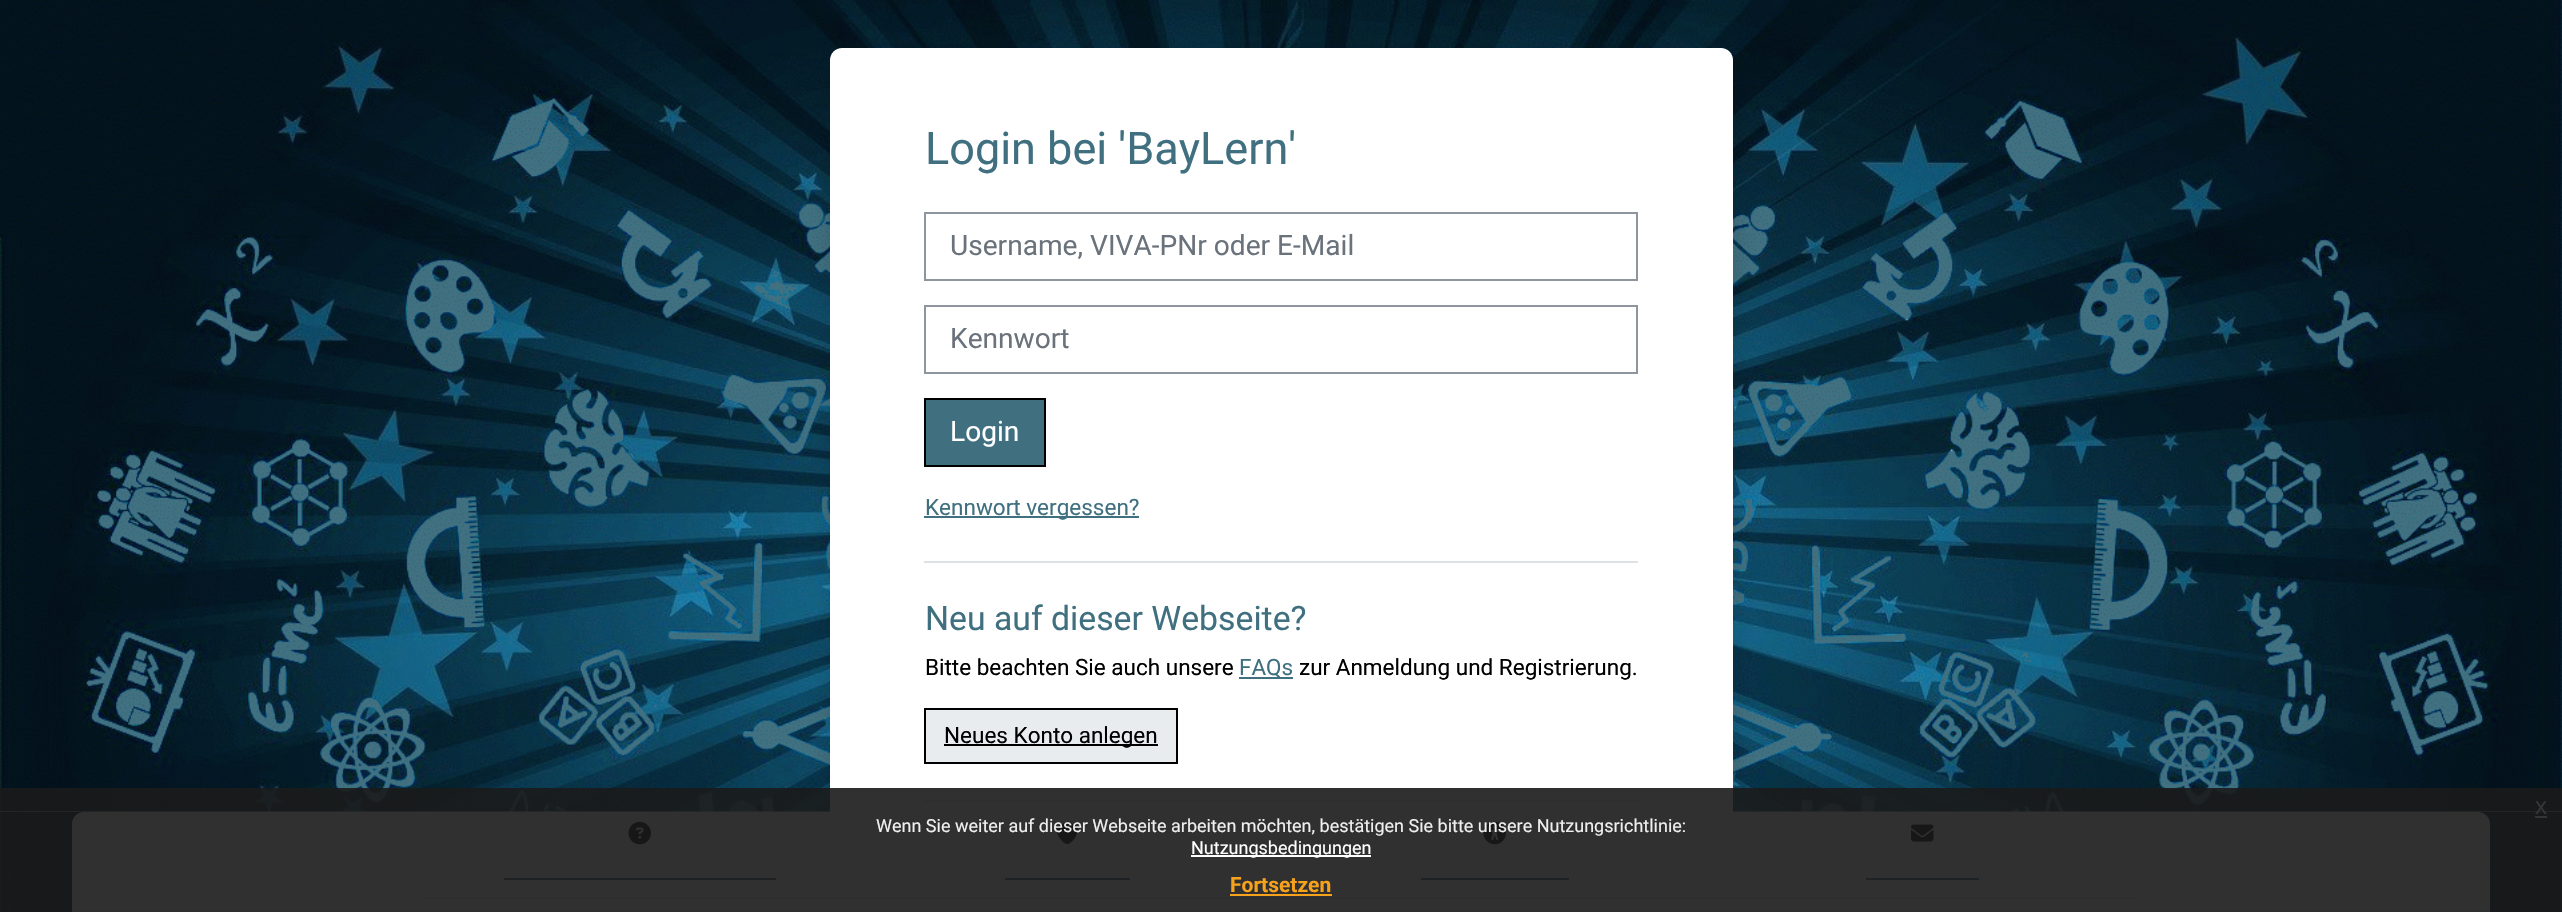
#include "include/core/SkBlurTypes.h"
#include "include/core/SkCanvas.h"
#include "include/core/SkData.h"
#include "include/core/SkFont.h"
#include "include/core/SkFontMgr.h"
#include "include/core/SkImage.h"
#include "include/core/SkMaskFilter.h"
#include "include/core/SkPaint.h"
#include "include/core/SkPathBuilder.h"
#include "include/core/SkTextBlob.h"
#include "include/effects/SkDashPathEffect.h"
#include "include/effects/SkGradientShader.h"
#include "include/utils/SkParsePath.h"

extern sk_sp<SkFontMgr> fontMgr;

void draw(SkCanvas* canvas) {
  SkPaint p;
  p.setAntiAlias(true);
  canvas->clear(SK_ColorWHITE);
  canvas->drawImageRect(SkImages::DeferredFromEncodedData(SkData::MakeFromFileName("images/1.png")), SkRect::MakeLTRB(0, 812, 2562, 912), SkSamplingOptions());
  p.setColor(SkColorSetRGB(248, 249, 250));
  canvas->drawRect(SkRect::MakeLTRB(0, 811, 2562, 812), p);
  canvas->drawImageRect(SkImages::DeferredFromEncodedData(SkData::MakeFromFileName("images/2.png")), SkRect::MakeLTRB(0, 0, 2562, 812), SkSamplingOptions());
  p.setColor(SK_ColorWHITE);
  canvas->drawPath(SkPathBuilder().moveTo(84, 812).lineTo(2478, 812).cubicTo(2484.5f, 812, 2490, 817.5f, 2490, 824).lineTo(2490, 912).lineTo(72, 912).lineTo(72, 824).cubicTo(72, 817.5f, 77.5f, 812, 84, 812).close().detach(), p);
  p.setColor(SkColorSetRGB(222, 226, 230));
  canvas->drawRect(SkRect::MakeLTRB(426, 897, 2136, 899), p);
  canvas->drawRect(SkRect::MakeLTRB(72, 911, 2490, 912), p);
  canvas->save();
  canvas->clipRect(SkRect::MakeLTRB(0, 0, 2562, 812));
  p.setColor(SkColorSetARGB(38, 0, 0, 0));
  p.setMaskFilter(SkMaskFilter::MakeBlur(kNormal_SkBlurStyle, 12));
  canvas->drawRoundRect(SkRect::MakeLTRB(830, 60, 1733, 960), 12, 12, p);
  p.setMaskFilter(nullptr);
  canvas->restore();
  p.setColor(SK_ColorWHITE);
  canvas->drawPath(SkPathBuilder().moveTo(842, 48).lineTo(1721, 48).cubicTo(1727.5f, 48, 1733, 53.5f, 1733, 60).lineTo(1733, 812).lineTo(830, 812).lineTo(830, 60).cubicTo(830, 53.5f, 835.5f, 48, 842, 48).close().detach(), p);
  p.setStyle(SkPaint::kStroke_Style);
  p.setStrokeWidth(2);
  p.setColor(SkColorSetRGB(143, 149, 158));
  canvas->drawRect(SkRect::MakeLTRB(925, 213, 1637, 280), p);
  canvas->drawRect(SkRect::MakeLTRB(925, 306, 1637, 373), p);
  p.setStyle(SkPaint::kFill_Style);
  p.setColor(SkColorSetRGB(64, 112, 128));
  canvas->drawRect(SkRect::MakeLTRB(925, 399, 1045, 466), p);
  p.setStyle(SkPaint::kStroke_Style);
  p.setColor(SK_ColorBLACK);
  canvas->drawRect(SkRect::MakeLTRB(925, 399, 1045, 466), p);
  p.setStyle(SkPaint::kFill_Style);
  p.setColor(SkColorSetRGB(64, 112, 128));
  canvas->drawRect(SkRect::MakeLTRB(924, 516, 1139, 518), p);
  p.setColor(SkColorSetRGB(222, 226, 230));
  canvas->drawRect(SkRect::MakeLTRB(924, 561, 1638, 563), p);
  p.setColor(SkColorSetRGB(64, 112, 128));
  canvas->drawRect(SkRect::MakeLTRB(1239, 677, 1293, 679), p);
  p.setColor(SkColorSetRGB(233, 236, 239));
  canvas->drawRect(SkRect::MakeLTRB(925, 709, 1177, 763), p);
  p.setStyle(SkPaint::kStroke_Style);
  p.setColor(SK_ColorBLACK);
  canvas->drawRect(SkRect::MakeLTRB(925, 709, 1177, 763), p);
  p.setStyle(SkPaint::kFill_Style);
  canvas->drawRect(SkRect::MakeLTRB(944, 744, 1158, 746), p);
  p.setColor(SkColorSetRGB(222, 226, 230));
  canvas->drawRect(SkRect::MakeLTRB(924, 800, 1638, 802), p);
  canvas->drawImageRect(SkImages::DeferredFromEncodedData(SkData::MakeFromFileName("images/3.png")), SkRect::MakeLTRB(628, 821, 651, 845), SkSamplingOptions());
  p.setColor(SkColorSetRGB(64, 112, 128));
  canvas->drawRect(SkRect::MakeLTRB(504, 878, 776, 880), p);
  canvas->drawImageRect(SkImages::DeferredFromEncodedData(SkData::MakeFromFileName("images/4.png")), SkRect::MakeLTRB(1056, 821, 1078, 845), SkSamplingOptions());
  canvas->drawRect(SkRect::MakeLTRB(1005, 878, 1130, 880), p);
  canvas->drawImageRect(SkImages::DeferredFromEncodedData(SkData::MakeFromFileName("images/5.png")), SkRect::MakeLTRB(1483, 821, 1506, 845), SkSamplingOptions());
  canvas->drawRect(SkRect::MakeLTRB(1421, 878, 1569, 880), p);
  canvas->drawImageRect(SkImages::DeferredFromEncodedData(SkData::MakeFromFileName("images/6.png")), SkRect::MakeLTRB(1911, 824, 1934, 842), SkSamplingOptions());
  canvas->drawRect(SkRect::MakeLTRB(1866, 878, 1979, 880), p);
  p.setColor(SkColorSetARGB(230, 25, 25, 25));
  canvas->drawRect(SkRect::MakeLTRB(0, 788, 2562, 912), p);
  p.setColor(SkColorSetRGB(51, 52, 53));
  canvas->drawRect(SkRect::MakeLTRB(2535, 816, 2547, 818), p);
  p.setColor(SK_ColorWHITE);
  canvas->drawRect(SkRect::MakeLTRB(1191, 855, 1371, 857), p);
  p.setColor(SkColorSetRGB(246, 162, 29));
  canvas->drawRect(SkRect::MakeLTRB(1230, 894, 1332, 896), p);
  SkFont font1(fontMgr->matchFamilyStyle("Roboto", SkFontStyle::Normal()), 45);
  font1.setSubpixel(true);
  p.setColor(SkColorSetRGB(64, 112, 128));
  canvas->drawString("Login bei 'BayLern'", 925, 164, font1, p);
  SkFont font2(fontMgr->matchFamilyStyle("Roboto", SkFontStyle::Normal()), 28.1f);
  font2.setSubpixel(true);
  p.setColor(SkColorSetRGB(106, 115, 123));
  canvas->drawString("Username, VIVA-PNr oder E-Mail", 950, 255, font2, p);
  canvas->drawString("Kennwort", 950, 348, font2, p);
  p.setColor(SK_ColorWHITE);
  canvas->drawString("Login", 950, 441, font2, p);
  SkFont font3(fontMgr->matchFamilyStyle("Roboto", SkFontStyle::Normal()), 22.5f);
  font3.setSubpixel(true);
  p.setColor(SkColorSetRGB(64, 112, 128));
  canvas->drawString("Kennwort vergessen?", 925, 515, font3, p);
  SkFont font4(fontMgr->matchFamilyStyle("Roboto", SkFontStyle::Normal()), 33.75f);
  font4.setSubpixel(true);
  canvas->drawString("Neu auf dieser Webseite?", 925, 630, font4, p);
  p.setColor(SK_ColorBLACK);
  canvas->drawString("Bitte beachten Sie auch unsere", 925, 675, font3, p);
  p.setColor(SkColorSetRGB(64, 112, 128));
  canvas->drawString("FAQs", 1239, 675, font3, p);
  p.setColor(SK_ColorBLACK);
  canvas->drawString("zur Anmeldung und Registrierung.", 1299, 675, font3, p);
  canvas->drawString("Neues Konto anlegen", 944, 743, font3, p);
  SkFont font5(fontMgr->matchFamilyStyle("Liberation Sans", SkFontStyle::Normal()), 24);
  font5.setSubpixel(true);
  p.setColor(SkColorSetRGB(52, 53, 53));
  canvas->drawString("x", 2535, 814, font5, p);
  SkFont font6(fontMgr->matchFamilyStyle("Roboto", SkFontStyle::Normal()), 18);
  font6.setSubpixel(true);
  p.setColor(SkColorSetRGB(239, 239, 239));
  canvas->drawString("Wenn Sie weiter auf dieser Webseite arbeiten möchten, bestätigen Sie bitte unsere Nutzungsrichtlinie:", 876, 832, font6, p);
  p.setColor(SK_ColorWHITE);
  canvas->drawString("Nutzungsbedingungen", 1191, 854, font6, p);
  SkFont font7(fontMgr->matchFamilyStyle("Roboto", SkFontStyle::Bold()), 21);
  font7.setSubpixel(true);
  p.setColor(SkColorSetRGB(246, 162, 29));
  canvas->drawString("Fortsetzen", 1230, 892, font7, p);
}
